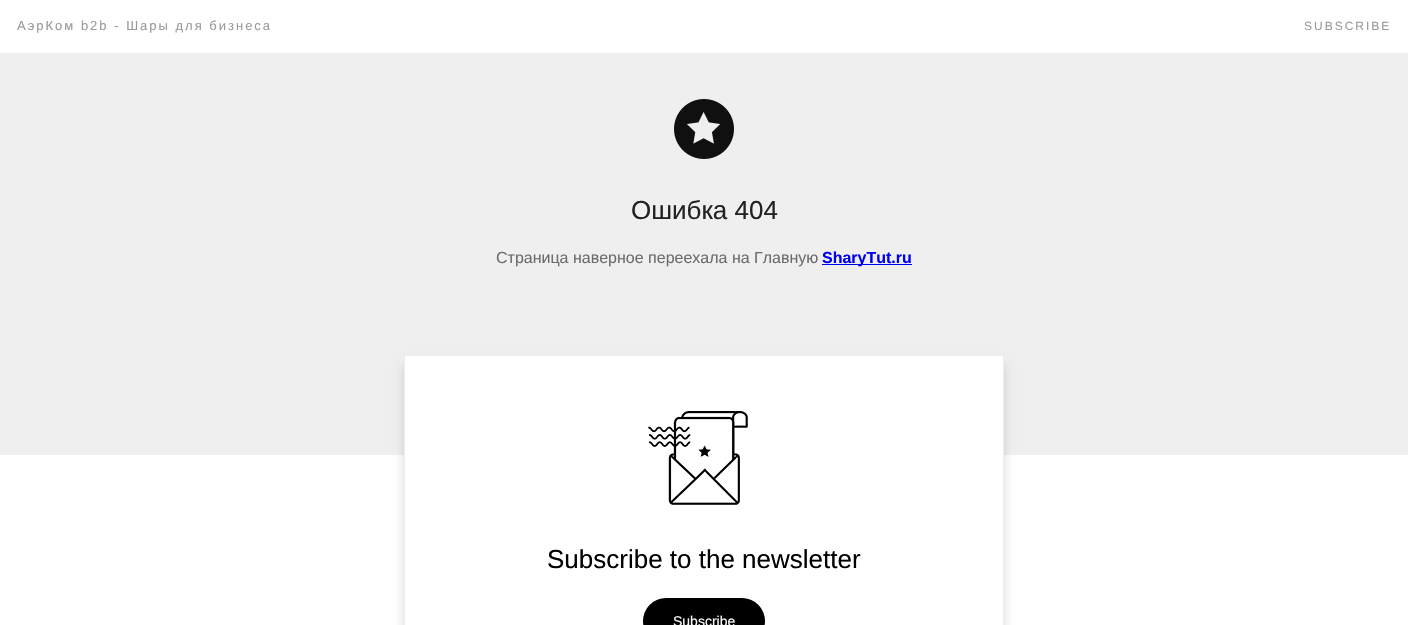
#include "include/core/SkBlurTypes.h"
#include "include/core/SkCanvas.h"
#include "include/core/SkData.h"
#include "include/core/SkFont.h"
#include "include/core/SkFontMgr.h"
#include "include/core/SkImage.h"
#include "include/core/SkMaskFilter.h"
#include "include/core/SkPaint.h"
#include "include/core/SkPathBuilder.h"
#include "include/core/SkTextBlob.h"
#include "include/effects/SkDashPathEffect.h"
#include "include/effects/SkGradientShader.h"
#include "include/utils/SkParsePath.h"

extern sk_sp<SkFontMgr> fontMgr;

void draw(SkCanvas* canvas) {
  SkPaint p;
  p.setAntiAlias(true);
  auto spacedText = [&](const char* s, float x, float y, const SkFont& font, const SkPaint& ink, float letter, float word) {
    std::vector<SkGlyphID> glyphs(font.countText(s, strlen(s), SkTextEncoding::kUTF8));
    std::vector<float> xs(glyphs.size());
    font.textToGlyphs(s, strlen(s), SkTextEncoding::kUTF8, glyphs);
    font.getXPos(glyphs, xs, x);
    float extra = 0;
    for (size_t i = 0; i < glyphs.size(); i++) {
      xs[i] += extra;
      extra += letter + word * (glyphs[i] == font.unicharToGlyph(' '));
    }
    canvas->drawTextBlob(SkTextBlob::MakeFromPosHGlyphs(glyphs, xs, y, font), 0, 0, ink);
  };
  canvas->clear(SkColorSetRGB(239, 239, 239));
  p.setColor(SK_ColorWHITE);
  canvas->drawRect(SkRect::MakeLTRB(0, 0, 1408, 53), p);
  canvas->drawImageRect(SkImages::DeferredFromEncodedData(SkData::MakeFromFileName("images/1.png")), SkRect::MakeLTRB(674, 99, 734, 159), SkSamplingOptions());
  p.setColor(SkColorSetRGB(0, 0, 238));
  canvas->drawRect(SkRect::MakeLTRB(822, 264, 912, 265), p);
  p.setColor(SK_ColorWHITE);
  canvas->drawRect(SkRect::MakeLTRB(0, 455, 1408, 625), p);
  p.setColor(SkColorSetARGB(38, 0, 0, 0));
  p.setMaskFilter(SkMaskFilter::MakeBlur(kNormal_SkBlurStyle, 5));
  canvas->drawRect(SkRect::MakeLTRB(404, 365, 1004, 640), p);
  p.setMaskFilter(nullptr);
  p.setColor(SK_ColorWHITE);
  canvas->drawRect(SkRect::MakeLTRB(404.5f, 355.5f, 1003.5f, 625.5f), p);
  p.setStyle(SkPaint::kStroke_Style);
  p.setStrokeWidth(1);
  p.setColor(SkColorSetRGB(238, 238, 238));
  canvas->drawRect(SkRect::MakeLTRB(404.5f, 355.5f, 1003.5f, 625.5f), p);
  canvas->drawImageRect(SkImages::DeferredFromEncodedData(SkData::MakeFromFileName("images/2.png")), SkRect::MakeLTRB(648, 411, 748, 505), SkSamplingOptions());
  p.setStyle(SkPaint::kFill_Style);
  p.setColor(SK_ColorBLACK);
  canvas->drawRoundRect(SkRect::MakeLTRB(643, 598, 765, 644), 23, 23, p);
  SkFont font1(fontMgr->matchFamilyStyle("Liberation Sans", SkFontStyle::Normal()), 13);
  font1.setSubpixel(true);
  p.setColor(SkColorSetRGB(153, 153, 153));
  spacedText("АэрКом b2b - Шары для бизнеса", 17, 30, font1, p, 2, 0);
  SkFont font2(fontMgr->matchFamilyStyle("Liberation Sans", SkFontStyle::Normal()), 12);
  font2.setSubpixel(true);
  spacedText("SUBSCRIBE", 1304, 30, font2, p, 2, 0);
  SkFont font3(fontMgr->matchFamilyStyle("Liberation Sans", SkFontStyle::Normal()), 26);
  font3.setSubpixel(true);
  p.setColor(SkColorSetRGB(34, 34, 34));
  canvas->drawString("Ошибка 404", 631, 219, font3, p);
  SkFont font4(fontMgr->matchFamilyStyle("Liberation Sans", SkFontStyle::Normal()), 16);
  font4.setSubpixel(true);
  p.setColor(SkColorSetRGB(108, 108, 108));
  canvas->drawString("Страница наверное переехала на Главную", 496, 263, font4, p);
  SkFont font5(fontMgr->matchFamilyStyle("Liberation Sans", SkFontStyle::Bold()), 16);
  font5.setSubpixel(true);
  p.setColor(SkColorSetRGB(0, 0, 238));
  canvas->drawString("SharyTut.ru", 822, 263, font5, p);
  p.setColor(SK_ColorBLACK);
  canvas->drawString("Subscribe to the newsletter", 547, 568, font3, p);
  SkFont font6(fontMgr->matchFamilyStyle("Liberation Sans", SkFontStyle::Normal()), 14);
  font6.setSubpixel(true);
  p.setColor(SK_ColorWHITE);
  canvas->drawString("Subscribe", 673, 626, font6, p);
}
